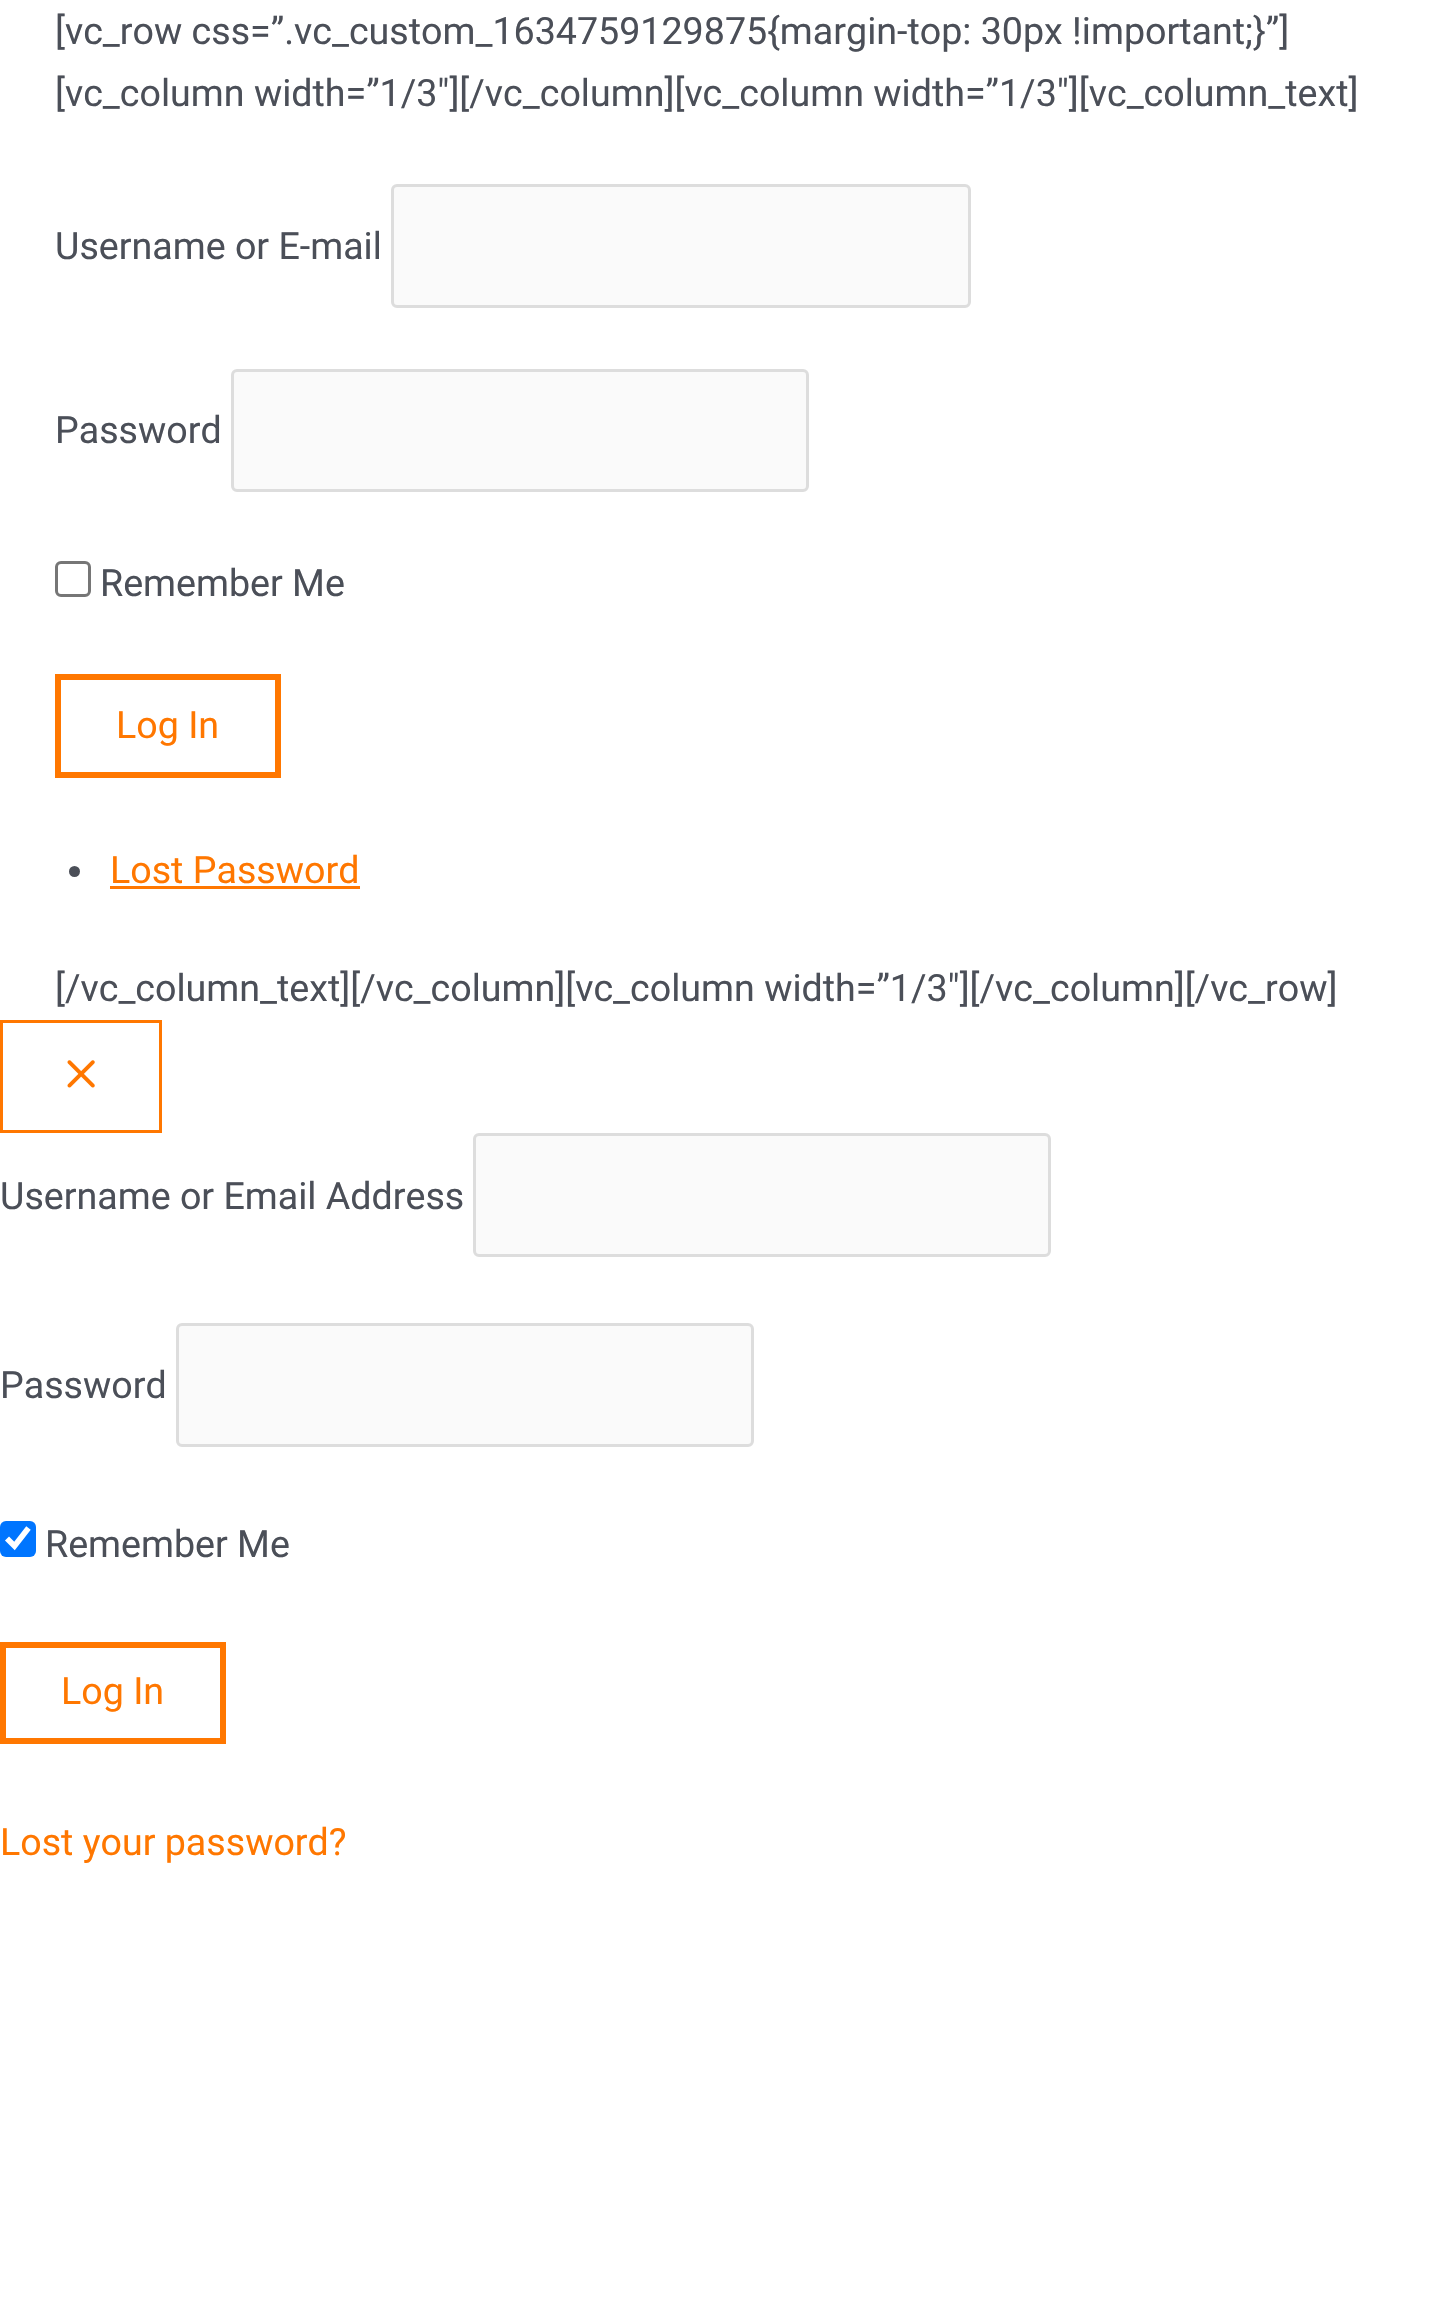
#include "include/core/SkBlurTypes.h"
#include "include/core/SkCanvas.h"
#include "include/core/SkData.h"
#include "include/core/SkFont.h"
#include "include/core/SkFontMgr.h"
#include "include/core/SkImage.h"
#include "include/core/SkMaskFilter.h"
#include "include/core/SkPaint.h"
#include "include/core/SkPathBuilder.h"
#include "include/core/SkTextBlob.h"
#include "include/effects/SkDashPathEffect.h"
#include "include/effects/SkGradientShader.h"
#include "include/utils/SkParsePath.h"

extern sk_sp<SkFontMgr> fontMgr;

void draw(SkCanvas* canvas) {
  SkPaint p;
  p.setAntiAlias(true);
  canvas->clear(SK_ColorWHITE);
  p.setColor(SkColorSetRGB(250, 250, 250));
  canvas->drawRoundRect(SkRect::MakeLTRB(392.5f, 185.5f, 969.5f, 306.5f), 4.5f, 4.5f, p);
  p.setStyle(SkPaint::kStroke_Style);
  p.setStrokeWidth(3);
  p.setColor(SkColorSetRGB(221, 221, 221));
  canvas->drawRoundRect(SkRect::MakeLTRB(392.5f, 185.5f, 969.5f, 306.5f), 4.5f, 4.5f, p);
  p.setStyle(SkPaint::kFill_Style);
  p.setColor(SkColorSetRGB(250, 250, 250));
  canvas->drawRoundRect(SkRect::MakeLTRB(232.5f, 370.5f, 807.5f, 490.5f), 4.5f, 4.5f, p);
  p.setStyle(SkPaint::kStroke_Style);
  p.setColor(SkColorSetRGB(221, 221, 221));
  canvas->drawRoundRect(SkRect::MakeLTRB(232.5f, 370.5f, 807.5f, 490.5f), 4.5f, 4.5f, p);
  p.setColor(SkColorSetRGB(118, 118, 118));
  canvas->drawRoundRect(SkRect::MakeLTRB(56.5f, 562.5f, 89.5f, 595.5f), 4.5f, 4.5f, p);
  p.setStrokeWidth(6);
  p.setColor(SkColorSetRGB(255, 119, 0));
  canvas->drawRect(SkRect::MakeLTRB(58, 677, 278, 775), p);
  p.setStyle(SkPaint::kFill_Style);
  p.setColor(SkColorSetRGB(75, 79, 88));
  canvas->drawCircle(74.5f, 871.5f, 5.5f, p);
  p.setColor(SkColorSetRGB(255, 119, 0));
  canvas->drawRect(SkRect::MakeLTRB(110, 886, 360, 889), p);
  p.setStyle(SkPaint::kStroke_Style);
  p.setStrokeWidth(3);
  canvas->drawRect(SkRect::MakeLTRB(1.5f, 1021.5f, 160.5f, 1131.5f), p);
  canvas->drawImageRect(SkImages::DeferredFromEncodedData(SkData::MakeFromFileName("images/1.png")), SkRect::MakeLTRB(67, 1060, 95, 1088), SkSamplingOptions());
  p.setStyle(SkPaint::kFill_Style);
  p.setColor(SkColorSetRGB(250, 250, 250));
  canvas->drawRoundRect(SkRect::MakeLTRB(474.5f, 1134.5f, 1049.5f, 1255.5f), 4.5f, 4.5f, p);
  p.setStyle(SkPaint::kStroke_Style);
  p.setColor(SkColorSetRGB(221, 221, 221));
  canvas->drawRoundRect(SkRect::MakeLTRB(474.5f, 1134.5f, 1049.5f, 1255.5f), 4.5f, 4.5f, p);
  p.setStyle(SkPaint::kFill_Style);
  p.setColor(SkColorSetRGB(250, 250, 250));
  canvas->drawRoundRect(SkRect::MakeLTRB(177.5f, 1324.5f, 752.5f, 1445.5f), 4.5f, 4.5f, p);
  p.setStyle(SkPaint::kStroke_Style);
  p.setColor(SkColorSetRGB(221, 221, 221));
  canvas->drawRoundRect(SkRect::MakeLTRB(177.5f, 1324.5f, 752.5f, 1445.5f), 4.5f, 4.5f, p);
  p.setStyle(SkPaint::kFill_Style);
  p.setColor(SkColorSetRGB(0, 117, 255));
  canvas->drawRoundRect(SkRect::MakeLTRB(0, 1521, 36, 1557), 6, 6, p);
  p.setStyle(SkPaint::kStroke_Style);
  p.setStrokeWidth(5.7f);
  p.setColor(SK_ColorWHITE);
  canvas->drawPath(SkPathBuilder().moveTo(7, 1538.5f).lineTo(14.5f, 1546).lineTo(28.5f, 1528).detach(), p);
  p.setStrokeWidth(6);
  p.setColor(SkColorSetRGB(255, 119, 0));
  canvas->drawRect(SkRect::MakeLTRB(3, 1645, 223, 1741), p);
  SkFont font1(fontMgr->matchFamilyStyle("Roboto", SkFontStyle::Normal()), 37.6f);
  font1.setSubpixel(true);
  p.setStyle(SkPaint::kFill_Style);
  p.setColor(SkColorSetRGB(75, 79, 88));
  canvas->drawString("[vc_row css=”.vc_custom_1634759129875{margin-top: 30px !important;}”]", 55, 44, font1, p);
  canvas->drawString("[vc_column width=”1/3″][/vc_column][vc_column width=”1/3″][vc_column_text]", 55, 106, font1, p);
  canvas->drawString("Username or E-mail", 55, 259, font1, p);
  canvas->drawString("Password", 55, 443, font1, p);
  canvas->drawString("Remember Me", 100, 596, font1, p);
  p.setColor(SkColorSetRGB(255, 119, 0));
  canvas->drawString("Log In", 116, 738, font1, p);
  canvas->drawString("Lost Password", 110, 883, font1, p);
  p.setColor(SkColorSetRGB(75, 79, 88));
  canvas->drawString("[/vc_column_text][/vc_column][vc_column width=”1/3″][/vc_column][/vc_row]", 55, 1001, font1, p);
  canvas->drawString("Username or Email Address", 0, 1209, font1, p);
  canvas->drawString("Password", 0, 1398, font1, p);
  canvas->drawString("Remember Me", 45, 1557, font1, p);
  p.setColor(SkColorSetRGB(255, 119, 0));
  canvas->drawString("Log In", 61, 1704, font1, p);
  canvas->drawString("Lost your password?", 0, 1855, font1, p);
}
